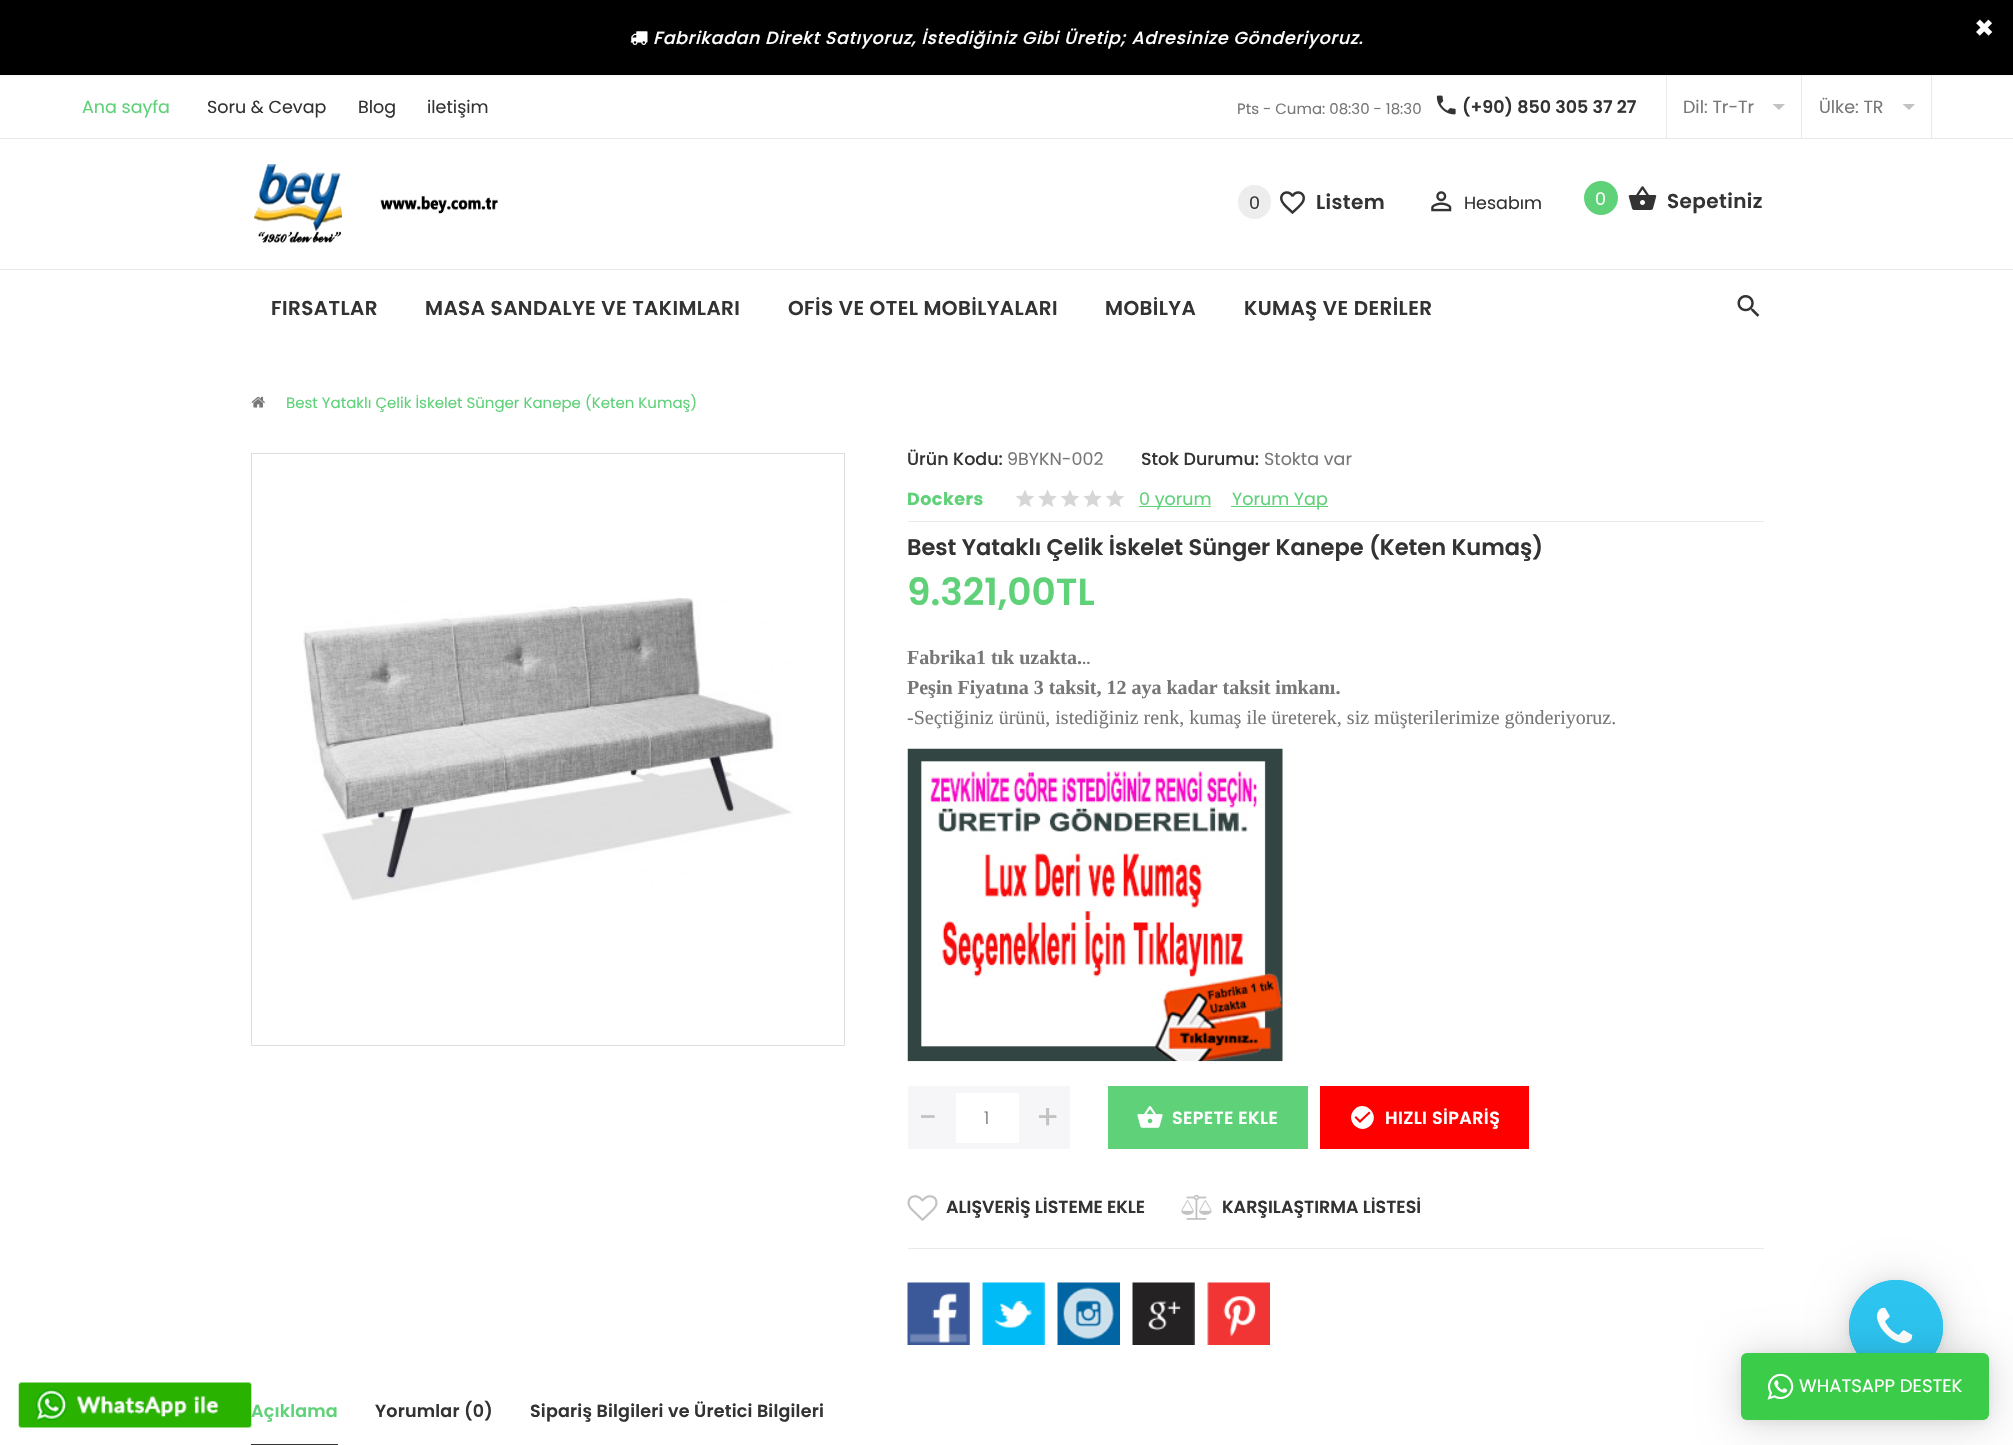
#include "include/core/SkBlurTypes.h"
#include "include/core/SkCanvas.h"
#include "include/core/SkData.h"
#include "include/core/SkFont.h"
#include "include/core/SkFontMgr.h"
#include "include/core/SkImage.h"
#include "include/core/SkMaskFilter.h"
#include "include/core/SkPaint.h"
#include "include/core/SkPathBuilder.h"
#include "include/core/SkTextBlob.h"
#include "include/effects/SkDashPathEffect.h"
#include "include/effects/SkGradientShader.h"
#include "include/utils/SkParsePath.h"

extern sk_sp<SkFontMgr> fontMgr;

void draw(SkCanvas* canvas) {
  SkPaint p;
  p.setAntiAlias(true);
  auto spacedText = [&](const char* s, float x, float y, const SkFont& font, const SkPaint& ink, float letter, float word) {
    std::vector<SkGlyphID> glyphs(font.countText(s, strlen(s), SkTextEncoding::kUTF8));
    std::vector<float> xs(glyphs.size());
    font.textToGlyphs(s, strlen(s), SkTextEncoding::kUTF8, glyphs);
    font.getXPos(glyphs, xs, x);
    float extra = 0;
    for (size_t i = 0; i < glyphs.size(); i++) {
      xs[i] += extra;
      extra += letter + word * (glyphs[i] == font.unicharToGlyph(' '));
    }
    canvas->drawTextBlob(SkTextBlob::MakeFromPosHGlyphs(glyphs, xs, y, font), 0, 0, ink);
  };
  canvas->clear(SK_ColorWHITE);
  p.setColor(SkColorSetARGB(26, 0, 0, 0));
  p.setMaskFilter(SkMaskFilter::MakeBlur(kNormal_SkBlurStyle, 1));
  canvas->drawRect(SkRect::MakeLTRB(0, 0, 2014, 75), p);
  p.setMaskFilter(nullptr);
  p.setColor(SK_ColorBLACK);
  canvas->drawRect(SkRect::MakeLTRB(0, 0, 2013, 75), p);
  canvas->drawImageRect(SkImages::DeferredFromEncodedData(SkData::MakeFromFileName("images/1.png")), SkRect::MakeLTRB(630, 31, 648, 45), SkSamplingOptions());
  canvas->drawImageRect(SkImages::DeferredFromEncodedData(SkData::MakeFromFileName("images/2.png")), SkRect::MakeLTRB(1436, 95, 1456, 115), SkSamplingOptions());
  p.setColor(SkColorSetRGB(233, 233, 233));
  canvas->drawRect(SkRect::MakeLTRB(1801, 75, 1802, 138), p);
  canvas->drawRect(SkRect::MakeLTRB(1666, 75, 1667, 138), p);
  p.setColor(SkColorSetRGB(194, 194, 194));
  canvas->drawPath(SkPathBuilder().moveTo(1772.5f, 104).lineTo(1785, 104).lineTo(1779, 110).close().detach(), p);
  p.setColor(SkColorSetRGB(233, 233, 233));
  canvas->drawRect(SkRect::MakeLTRB(1931, 75, 1932, 138), p);
  p.setColor(SkColorSetRGB(194, 194, 194));
  canvas->drawPath(SkPathBuilder().moveTo(1902.5f, 104).lineTo(1915, 104).lineTo(1909, 110).close().detach(), p);
  p.setColor(SkColorSetRGB(233, 233, 233));
  canvas->drawRect(SkRect::MakeLTRB(0, 138, 2013, 139), p);
  canvas->drawImageRect(SkImages::DeferredFromEncodedData(SkData::MakeFromFileName("images/3.png")), SkRect::MakeLTRB(254, 164, 498, 243), SkSamplingOptions());
  p.setColor(SkColorSetRGB(237, 237, 237));
  canvas->drawRoundRect(SkRect::MakeLTRB(1238, 185, 1271, 219), 16.5f, 16.5f, p);
  canvas->drawImageRect(SkImages::DeferredFromEncodedData(SkData::MakeFromFileName("images/4.png")), SkRect::MakeLTRB(1280, 191, 1305, 215), SkSamplingOptions());
  canvas->drawImageRect(SkImages::DeferredFromEncodedData(SkData::MakeFromFileName("images/5.png")), SkRect::MakeLTRB(1431, 191, 1452, 212), SkSamplingOptions());
  p.setColor(SkColorSetRGB(95, 209, 121));
  canvas->drawCircle(1601, 198, 17, p);
  canvas->drawImageRect(SkImages::DeferredFromEncodedData(SkData::MakeFromFileName("images/6.png")), SkRect::MakeLTRB(1628, 186, 1657, 210), SkSamplingOptions());
  p.setColor(SkColorSetRGB(233, 233, 233));
  canvas->drawRect(SkRect::MakeLTRB(0, 269, 2013, 270), p);
  canvas->drawImageRect(SkImages::DeferredFromEncodedData(SkData::MakeFromFileName("images/7.png")), SkRect::MakeLTRB(1737, 295, 1760, 317), SkSamplingOptions());
  canvas->drawImageRect(SkImages::DeferredFromEncodedData(SkData::MakeFromFileName("images/8.png")), SkRect::MakeLTRB(251, 396, 265, 408), SkSamplingOptions());
  p.setStyle(SkPaint::kStroke_Style);
  p.setStrokeWidth(1);
  p.setColor(SkColorSetRGB(222, 222, 222));
  canvas->drawRect(SkRect::MakeLTRB(251.5f, 453.5f, 844.5f, 1045.5f), p);
  canvas->drawImageRect(SkImages::DeferredFromEncodedData(SkData::MakeFromFileName("images/9.png")), SkRect::MakeLTRB(303, 598, 793, 901), SkSamplingOptions());
  canvas->drawImageRect(SkImages::DeferredFromEncodedData(SkData::MakeFromFileName("images/10.png")), SkRect::MakeLTRB(1016, 490, 1034, 507), SkSamplingOptions());
  canvas->drawImageRect(SkImages::DeferredFromEncodedData(SkData::MakeFromFileName("images/11.png")), SkRect::MakeLTRB(1038, 489, 1057, 507), SkSamplingOptions());
  canvas->drawImageRect(SkImages::DeferredFromEncodedData(SkData::MakeFromFileName("images/10.png")), SkRect::MakeLTRB(1061, 490, 1079, 507), SkSamplingOptions());
  canvas->drawImageRect(SkImages::DeferredFromEncodedData(SkData::MakeFromFileName("images/11.png")), SkRect::MakeLTRB(1083, 489, 1102, 507), SkSamplingOptions());
  canvas->drawImageRect(SkImages::DeferredFromEncodedData(SkData::MakeFromFileName("images/10.png")), SkRect::MakeLTRB(1106, 490, 1124, 507), SkSamplingOptions());
  p.setStyle(SkPaint::kFill_Style);
  p.setColor(SkColorSetRGB(95, 209, 121));
  canvas->drawRect(SkRect::MakeLTRB(1139, 506, 1211, 507), p);
  canvas->drawRect(SkRect::MakeLTRB(1231, 506, 1328, 507), p);
  p.setColor(SkColorSetRGB(233, 233, 233));
  canvas->drawRect(SkRect::MakeLTRB(908, 521, 1764, 522), p);
  canvas->drawImageRect(SkImages::DeferredFromEncodedData(SkData::MakeFromFileName("images/12.png")), SkRect::MakeLTRB(907, 748, 1283, 1062), SkSamplingOptions());
  p.setColor(SkColorSetRGB(246, 246, 248));
  canvas->drawRect(SkRect::MakeLTRB(908, 1086, 1070, 1149), p);
  p.setColor(SK_ColorWHITE);
  canvas->drawRect(SkRect::MakeLTRB(956, 1093, 1019, 1143), p);
  p.setColor(SkColorSetRGB(95, 209, 121));
  canvas->drawRect(SkRect::MakeLTRB(1108, 1086, 1308, 1149), p);
  canvas->drawImageRect(SkImages::DeferredFromEncodedData(SkData::MakeFromFileName("images/13.png")), SkRect::MakeLTRB(1137, 1106, 1163, 1128), SkSamplingOptions());
  p.setColor(SkColorSetRGB(255, 0, 0));
  canvas->drawRect(SkRect::MakeLTRB(1320, 1086, 1529, 1149), p);
  p.setColor(SK_ColorWHITE);
  canvas->drawPath(SkPathBuilder().moveTo(1360, 1123).lineTo(1370.5f, 1113).lineTo(1369, 1111.5f).lineTo(1360, 1120).lineTo(1356, 1116).lineTo(1354.5f, 1117.5f).close().moveTo(1354.5f, 1109.5f).cubicTo(1365, 1099, 1381, 1115, 1370.5f, 1125.5f).cubicTo(1360, 1136, 1344, 1120, 1354.5f, 1109.5f).close().detach(), p);
  canvas->drawImageRect(SkImages::DeferredFromEncodedData(SkData::MakeFromFileName("images/14.png")), SkRect::MakeLTRB(907, 1195, 938, 1221), SkSamplingOptions());
  canvas->drawImageRect(SkImages::DeferredFromEncodedData(SkData::MakeFromFileName("images/15.png")), SkRect::MakeLTRB(1181, 1194, 1212, 1220), SkSamplingOptions());
  p.setColor(SkColorSetRGB(233, 233, 233));
  canvas->drawRect(SkRect::MakeLTRB(908, 1248, 1764, 1249), p);
  canvas->drawImageRect(SkImages::DeferredFromEncodedData(SkData::MakeFromFileName("images/16.png")), SkRect::MakeLTRB(907, 1282, 970, 1345), SkSamplingOptions());
  canvas->drawImageRect(SkImages::DeferredFromEncodedData(SkData::MakeFromFileName("images/17.png")), SkRect::MakeLTRB(982, 1282, 1045, 1345), SkSamplingOptions());
  canvas->drawImageRect(SkImages::DeferredFromEncodedData(SkData::MakeFromFileName("images/18.png")), SkRect::MakeLTRB(1057, 1282, 1120, 1345), SkSamplingOptions());
  canvas->drawImageRect(SkImages::DeferredFromEncodedData(SkData::MakeFromFileName("images/19.png")), SkRect::MakeLTRB(1132, 1282, 1195, 1345), SkSamplingOptions());
  canvas->drawImageRect(SkImages::DeferredFromEncodedData(SkData::MakeFromFileName("images/20.png")), SkRect::MakeLTRB(1207, 1282, 1270, 1345), SkSamplingOptions());
  p.setColor(SkColorSetARGB(41, 0, 0, 0));
  p.setMaskFilter(SkMaskFilter::MakeBlur(kNormal_SkBlurStyle, 20));
  canvas->drawRoundRect(SkRect::MakeLTRB(1849, 1283, 1943, 1376), 46.5f, 46.5f, p);
  p.setMaskFilter(nullptr);
  p.setColor(SkColorSetARGB(15, 0, 0, 0));
  p.setMaskFilter(SkMaskFilter::MakeBlur(kNormal_SkBlurStyle, 4));
  canvas->drawRoundRect(SkRect::MakeLTRB(1849, 1281, 1943, 1375), 47, 47, p);
  p.setMaskFilter(nullptr);
  p.setColor(SkColorSetRGB(45, 196, 240));
  canvas->drawCircle(1896, 1327, 47, p);
  canvas->drawImageRect(SkImages::DeferredFromEncodedData(SkData::MakeFromFileName("images/21.png")), SkRect::MakeLTRB(1876, 1307, 1913, 1344), SkSamplingOptions());
  p.setStyle(SkPaint::kStroke_Style);
  canvas->drawCircle(1896, 1327, 46.5f, p);
  canvas->drawCircle(1896, 1327, 46.5f, p);
  p.setStyle(SkPaint::kFill_Style);
  p.setColor(SkColorSetRGB(51, 51, 51));
  canvas->drawRect(SkRect::MakeLTRB(251, 1444, 338, 1445), p);
  p.setColor(SkColorSetARGB(41, 0, 0, 0));
  p.setMaskFilter(SkMaskFilter::MakeBlur(kNormal_SkBlurStyle, 20));
  canvas->drawRoundRect(SkRect::MakeLTRB(1741, 1355, 1989, 1423), 6, 6, p);
  p.setMaskFilter(nullptr);
  p.setColor(SkColorSetARGB(15, 0, 0, 0));
  p.setMaskFilter(SkMaskFilter::MakeBlur(kNormal_SkBlurStyle, 4));
  canvas->drawRoundRect(SkRect::MakeLTRB(1741, 1354, 1989, 1421), 6, 6, p);
  p.setMaskFilter(nullptr);
  p.setColor(SkColorSetRGB(59, 204, 73));
  canvas->drawRoundRect(SkRect::MakeLTRB(1741, 1353, 1989, 1420), 6, 6, p);
  canvas->drawImageRect(SkImages::DeferredFromEncodedData(SkData::MakeFromFileName("images/23.png")), SkRect::MakeLTRB(1767, 1373, 1794, 1400), SkSamplingOptions());
  SkFont font1(fontMgr->matchFamilyStyle("Poppins", SkFontStyle(500, SkFontStyle::kNormal_Width, SkFontStyle::kItalic_Slant)), 17.5f);
  font1.setSubpixel(true);
  p.setColor(SK_ColorWHITE);
  spacedText("Fabrikadan Direkt Satıyoruz, İstediğiniz Gibi Üretip; Adresinize Gönderiyoruz.", 653, 44, font1, p, 0.62f, 0);
  SkFont font2(fontMgr->matchFamilyStyle("Poppins", SkFontStyle::Bold()), 32);
  font2.setSubpixel(true);
  canvas->drawString("×", 1974, 39, font2, p);
  SkFont font3(fontMgr->matchFamilyStyle("Poppins", SkFontStyle::Normal()), 17.5f);
  font3.setSubpixel(true);
  p.setColor(SkColorSetRGB(95, 209, 121));
  canvas->drawString("Ana sayfa", 82, 113, font3, p);
  p.setColor(SkColorSetRGB(51, 51, 51));
  canvas->drawString("Soru & Cevap", 207, 113, font3, p);
  canvas->drawString("Blog", 358, 113, font3, p);
  canvas->drawString("iletişim", 427, 113, font3, p);
  SkFont font4(fontMgr->matchFamilyStyle("Poppins", SkFontStyle::Normal()), 15);
  font4.setSubpixel(true);
  p.setColor(SkColorSetRGB(119, 119, 119));
  canvas->drawString("Pts - Cuma: 08:30 - 18:30", 1237, 114, font4, p);
  SkFont font5(fontMgr->matchFamilyStyle("Poppins", SkFontStyle(600, SkFontStyle::kNormal_Width, SkFontStyle::kUpright_Slant)), 17.5f);
  font5.setSubpixel(true);
  p.setColor(SkColorSetRGB(51, 51, 51));
  canvas->drawString("(+90) 850 305 37 27", 1462, 113, font5, p);
  p.setColor(SkColorSetRGB(119, 119, 119));
  canvas->drawString("Dil: Tr-Tr", 1683, 113, font3, p);
  canvas->drawString("Ülke: TR", 1819, 113, font3, p);
  p.setColor(SkColorSetRGB(51, 51, 51));
  canvas->drawString("0", 1249, 209, font3, p);
  SkFont font6(fontMgr->matchFamilyStyle("Poppins", SkFontStyle(600, SkFontStyle::kNormal_Width, SkFontStyle::kUpright_Slant)), 20);
  font6.setSubpixel(true);
  spacedText("Listem", 1316, 209, font6, p, 0.4f, 0);
  canvas->drawString("Hesabım", 1464, 209, font3, p);
  p.setColor(SK_ColorWHITE);
  canvas->drawString("0", 1595, 205, font3, p);
  p.setColor(SkColorSetRGB(51, 51, 51));
  spacedText("Sepetiniz", 1667, 208, font6, p, 0.4f, 0);
  spacedText("FIRSATLAR", 271, 315, font6, p, 0.4f, 0);
  spacedText("MASA SANDALYE VE TAKIMLARI", 425, 315, font6, p, 0.4f, 0);
  spacedText("OFİS VE OTEL MOBİLYALARI", 788, 315, font6, p, 0.4f, 0);
  spacedText("MOBİLYA", 1105, 315, font6, p, 0.4f, 0);
  spacedText("KUMAŞ VE DERİLER", 1244, 315, font6, p, 0.4f, 0);
  p.setColor(SkColorSetRGB(95, 209, 121));
  canvas->drawString("Best Yataklı Çelik İskelet Sünger Kanepe (Keten Kumaş)", 286, 408, font4, p);
  SkFont font7(fontMgr->matchFamilyStyle("Poppins", SkFontStyle(500, SkFontStyle::kNormal_Width, SkFontStyle::kUpright_Slant)), 17.5f);
  font7.setSubpixel(true);
  p.setColor(SkColorSetRGB(51, 51, 51));
  canvas->drawString("Ürün Kodu:", 907, 465, font7, p);
  p.setColor(SkColorSetRGB(119, 119, 119));
  canvas->drawString("9BYKN-002", 1007, 465, font3, p);
  p.setColor(SkColorSetRGB(51, 51, 51));
  canvas->drawString("Stok Durumu:", 1141, 465, font7, p);
  p.setColor(SkColorSetRGB(119, 119, 119));
  canvas->drawString("Stokta var", 1264, 465, font3, p);
  SkFont font8(fontMgr->matchFamilyStyle("Poppins", SkFontStyle::Bold()), 17.5f);
  font8.setSubpixel(true);
  p.setColor(SkColorSetRGB(95, 209, 121));
  spacedText("Dockers", 907, 505, font8, p, 0.5f, 0);
  canvas->drawString("0 yorum", 1139, 505, font3, p);
  canvas->drawString("Yorum Yap", 1232, 505, font3, p);
  SkFont font9(fontMgr->matchFamilyStyle("Poppins", SkFontStyle(600, SkFontStyle::kNormal_Width, SkFontStyle::kUpright_Slant)), 22.5f);
  font9.setSubpixel(true);
  p.setColor(SkColorSetRGB(51, 51, 51));
  canvas->drawString("Best Yataklı Çelik İskelet Sünger Kanepe (Keten Kumaş)", 907, 555, font9, p);
  SkFont font10(fontMgr->matchFamilyStyle("Poppins", SkFontStyle(600, SkFontStyle::kNormal_Width, SkFontStyle::kUpright_Slant)), 37.5f);
  font10.setSubpixel(true);
  p.setColor(SkColorSetRGB(95, 209, 121));
  canvas->drawString("9.321,00TL", 907, 605, font10, p);
  SkFont font11(fontMgr->matchFamilyStyle("Liberation Serif", SkFontStyle::Bold()), 20);
  font11.setSubpixel(true);
  p.setColor(SkColorSetRGB(119, 119, 119));
  canvas->drawString("Fabrika1 tık uzakta.", 907, 664, font11, p);
  SkFont font12(fontMgr->matchFamilyStyle("Poppins", SkFontStyle::Normal()), 20);
  font12.setSubpixel(true);
  canvas->drawString("..", 1082, 664, font12, p);
  canvas->drawString("Peşin Fiyatına 3 taksit, 12 aya kadar taksit imkanı.", 907, 694, font11, p);
  SkFont font13(fontMgr->matchFamilyStyle("Liberation Serif", SkFontStyle::Normal()), 20);
  font13.setSubpixel(true);
  canvas->drawString("-Seçtiğiniz ürünü, istediğiniz renk, kumaş ile üreterek, siz müşterilerimize gönderiyoruz.", 907, 724, font13, p);
  SkFont font14(fontMgr->matchFamilyStyle("Poppins", SkFontStyle::Normal()), 34);
  font14.setSubpixel(true);
  p.setColor(SkColorSetRGB(194, 194, 194));
  canvas->drawString("-", 919, 1129, font14, p);
  SkFont font15(fontMgr->matchFamilyStyle("Poppins", SkFontStyle(300, SkFontStyle::kNormal_Width, SkFontStyle::kUpright_Slant)), 17.5f);
  font15.setSubpixel(true);
  p.setColor(SkColorSetRGB(119, 119, 119));
  canvas->drawString("1", 984, 1124, font15, p);
  p.setColor(SkColorSetRGB(194, 194, 194));
  canvas->drawString("+", 1036, 1129, font14, p);
  p.setColor(SK_ColorWHITE);
  spacedText("SEPETE EKLE", 1172, 1124, font5, p, 0.4f, 0);
  spacedText("HIZLI SİPARİŞ", 1385, 1124, font5, p, 0.4f, 0);
  p.setColor(SkColorSetRGB(51, 51, 51));
  canvas->drawString("ALIŞVERİŞ LİSTEME EKLE", 946, 1213, font5, p);
  canvas->drawString("KARŞILAŞTIRMA LİSTESİ", 1222, 1213, font5, p);
  p.setColor(SkColorSetRGB(95, 209, 121));
  spacedText("Açıklama", 251, 1417, font5, p, 0.2f, 0);
  canvas->drawImageRect(SkImages::DeferredFromEncodedData(SkData::MakeFromFileName("images/22.png")), SkRect::MakeLTRB(18, 1382, 252, 1428), SkSamplingOptions());
  p.setColor(SkColorSetRGB(51, 51, 51));
  spacedText("Yorumlar (0)", 375, 1417, font5, p, 0.2f, 0);
  spacedText("Sipariş Bilgileri ve Üretici Bilgileri", 530, 1417, font5, p, 0.2f, 0);
  SkFont font16(fontMgr->matchFamilyStyle("Poppins", SkFontStyle::Normal()), 18.1f);
  font16.setSubpixel(true);
  p.setColor(SK_ColorWHITE);
  canvas->drawString("WHATSAPP DESTEK", 1799, 1392, font16, p);
}
